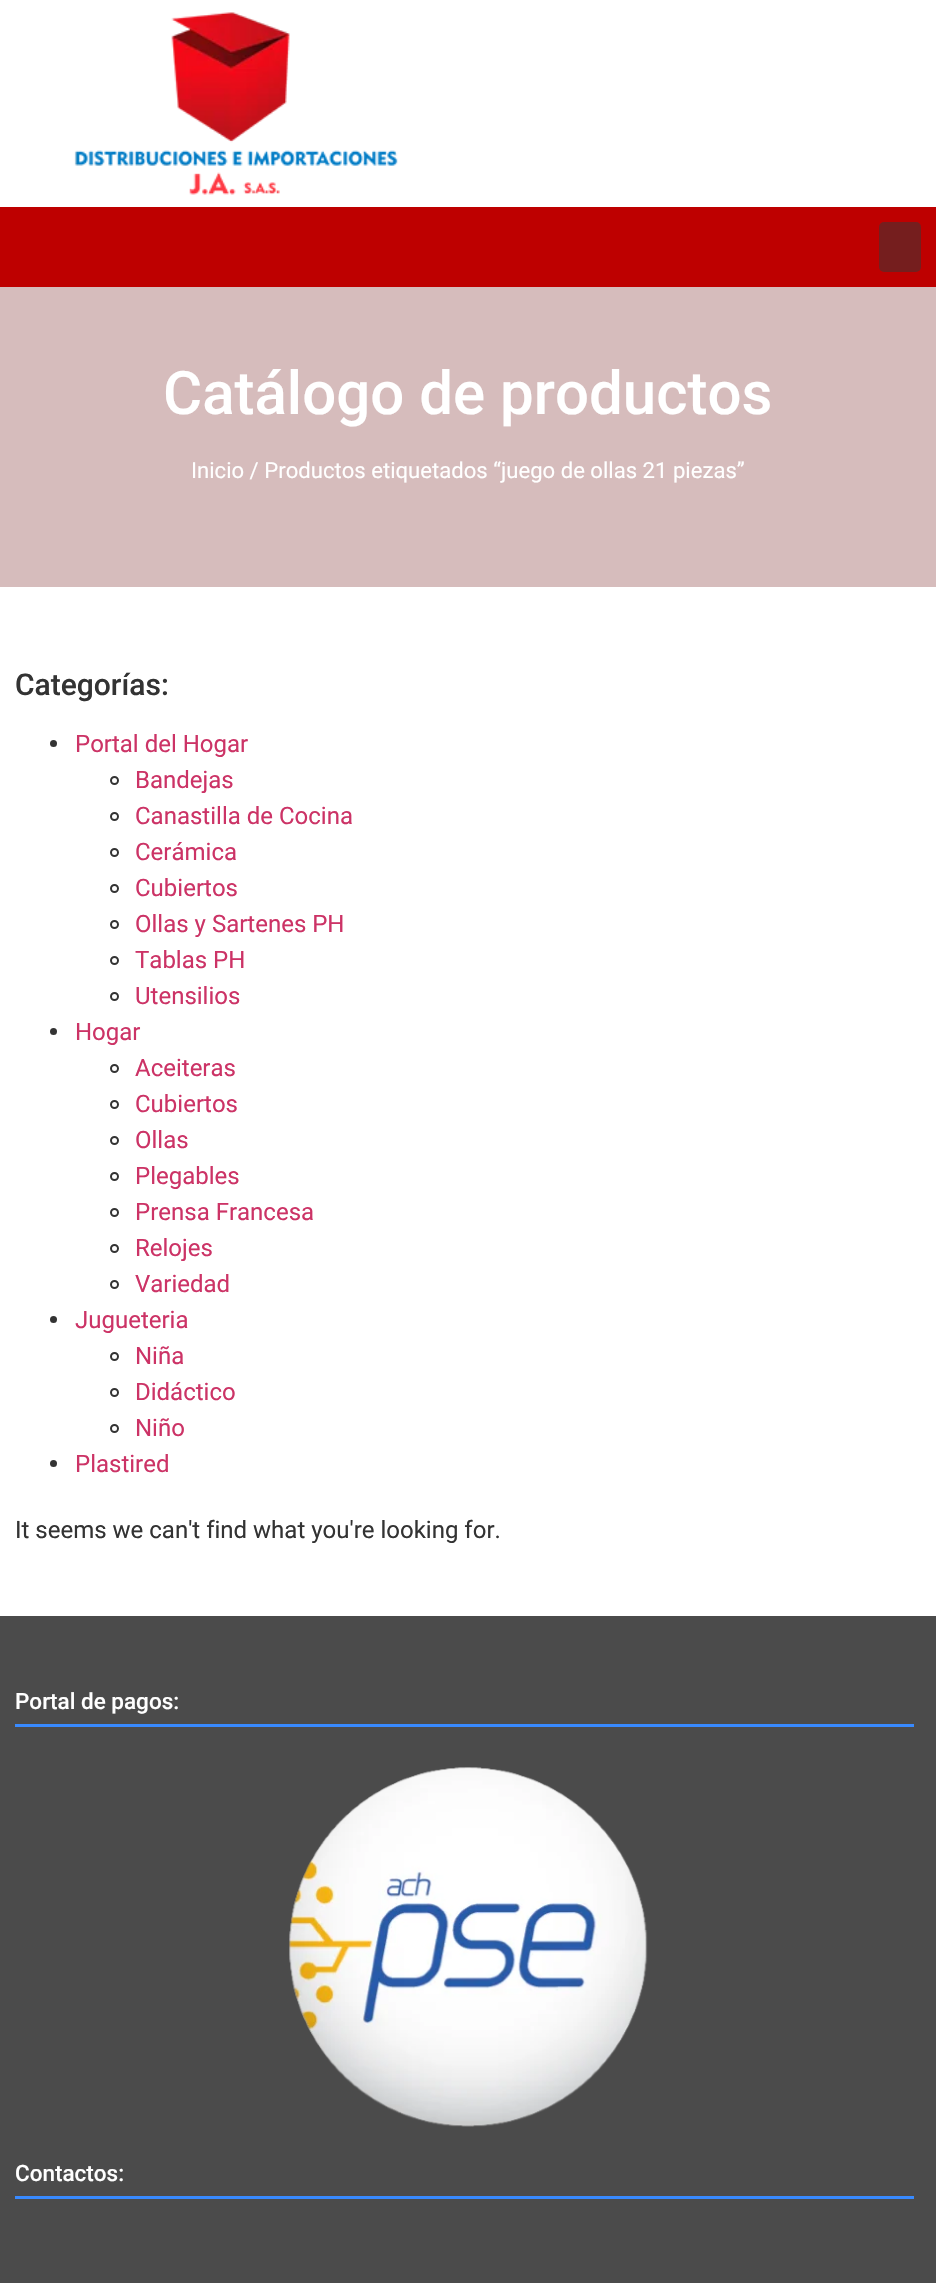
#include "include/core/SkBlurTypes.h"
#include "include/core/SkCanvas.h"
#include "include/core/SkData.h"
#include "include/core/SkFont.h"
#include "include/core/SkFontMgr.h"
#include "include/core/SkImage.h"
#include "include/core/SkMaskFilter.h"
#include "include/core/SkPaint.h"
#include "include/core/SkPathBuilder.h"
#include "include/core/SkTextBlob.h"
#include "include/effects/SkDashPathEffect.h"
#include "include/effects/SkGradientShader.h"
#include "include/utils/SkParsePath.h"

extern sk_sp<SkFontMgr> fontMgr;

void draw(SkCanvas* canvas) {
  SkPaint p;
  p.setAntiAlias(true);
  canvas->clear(SK_ColorWHITE);
  canvas->drawImageRect(SkImages::DeferredFromEncodedData(SkData::MakeFromFileName("images/1.png")), SkRect::MakeLTRB(74, 12, 398, 195), SkSamplingOptions());
  p.setColor(SkColorSetRGB(190, 0, 0));
  canvas->drawRect(SkRect::MakeLTRB(0, 207, 936, 287), p);
  p.setColor(SkColorSetRGB(117, 30, 30));
  canvas->drawRoundRect(SkRect::MakeLTRB(879, 222, 921, 272), 5, 5, p);
  p.setColor(SkColorSetRGB(214, 188, 188));
  canvas->drawRect(SkRect::MakeLTRB(0, 287, 936, 587), p);
  p.setColor(SkColorSetRGB(51, 51, 51));
  canvas->drawCircle(53.5f, 743.5f, 3.5f, p);
  p.setStyle(SkPaint::kStroke_Style);
  p.setStrokeWidth(2);
  canvas->drawCircle(114.5f, 780.5f, 3.5f, p);
  canvas->drawCircle(114.5f, 816.5f, 3.5f, p);
  canvas->drawCircle(114.5f, 852.5f, 3.5f, p);
  canvas->drawCircle(114.5f, 888.5f, 3.5f, p);
  canvas->drawCircle(114.5f, 924.5f, 3.5f, p);
  canvas->drawCircle(114.5f, 960.5f, 3.5f, p);
  canvas->drawCircle(114.5f, 996.5f, 3.5f, p);
  p.setStyle(SkPaint::kFill_Style);
  canvas->drawCircle(53.5f, 1031.5f, 3.5f, p);
  p.setStyle(SkPaint::kStroke_Style);
  canvas->drawCircle(114.5f, 1068.5f, 3.5f, p);
  canvas->drawCircle(114.5f, 1104.5f, 3.5f, p);
  canvas->drawCircle(114.5f, 1140.5f, 3.5f, p);
  canvas->drawCircle(114.5f, 1176.5f, 3.5f, p);
  canvas->drawCircle(114.5f, 1212.5f, 3.5f, p);
  canvas->drawCircle(114.5f, 1248.5f, 3.5f, p);
  canvas->drawCircle(114.5f, 1284.5f, 3.5f, p);
  p.setStyle(SkPaint::kFill_Style);
  canvas->drawCircle(53.5f, 1319.5f, 3.5f, p);
  p.setStyle(SkPaint::kStroke_Style);
  canvas->drawCircle(114.5f, 1356.5f, 3.5f, p);
  canvas->drawCircle(114.5f, 1392.5f, 3.5f, p);
  canvas->drawCircle(114.5f, 1428.5f, 3.5f, p);
  p.setStyle(SkPaint::kFill_Style);
  canvas->drawCircle(53.5f, 1463.5f, 3.5f, p);
  p.setColor(SkColorSetRGB(75, 75, 75));
  canvas->drawRect(SkRect::MakeLTRB(0, 1616, 936, 2283), p);
  p.setColor(SkColorSetRGB(56, 138, 255));
  canvas->drawRect(SkRect::MakeLTRB(15, 1724, 914, 1727), p);
  canvas->drawImageRect(SkImages::DeferredFromEncodedData(SkData::MakeFromFileName("images/2.png")), SkRect::MakeLTRB(289, 1767, 648, 2127), SkSamplingOptions());
  canvas->drawRect(SkRect::MakeLTRB(15, 2196, 914, 2199), p);
  SkFont font1(fontMgr->matchFamilyStyle("Roboto", SkFontStyle(500, SkFontStyle::kNormal_Width, SkFontStyle::kUpright_Slant)), 60);
  font1.setSubpixel(true);
  p.setColor(SK_ColorWHITE);
  canvas->drawString("Catálogo de productos", 163, 414, font1, p);
  SkFont font2(fontMgr->matchFamilyStyle("Roboto", SkFontStyle::Normal()), 22.1f);
  font2.setSubpixel(true);
  canvas->drawString("Inicio / Productos etiquetados “juego de ollas 21 piezas”", 191, 478, font2, p);
  SkFont font3(fontMgr->matchFamilyStyle("Roboto", SkFontStyle(500, SkFontStyle::kNormal_Width, SkFontStyle::kUpright_Slant)), 30);
  font3.setSubpixel(true);
  p.setColor(SkColorSetRGB(51, 51, 51));
  canvas->drawString("Categorías:", 15, 695, font3, p);
  SkFont font4(fontMgr->matchFamilyStyle("Roboto", SkFontStyle::Normal()), 24);
  font4.setSubpixel(true);
  p.setColor(SkColorSetRGB(204, 51, 102));
  canvas->drawString("Portal del Hogar", 75, 752, font4, p);
  canvas->drawString("Bandejas", 135, 788, font4, p);
  canvas->drawString("Canastilla de Cocina", 135, 824, font4, p);
  canvas->drawString("Cerámica", 135, 860, font4, p);
  canvas->drawString("Cubiertos", 135, 896, font4, p);
  canvas->drawString("Ollas y Sartenes PH", 135, 932, font4, p);
  canvas->drawString("Tablas PH", 135, 968, font4, p);
  canvas->drawString("Utensilios", 135, 1004, font4, p);
  canvas->drawString("Hogar", 75, 1040, font4, p);
  canvas->drawString("Aceiteras", 135, 1076, font4, p);
  canvas->drawString("Cubiertos", 135, 1112, font4, p);
  canvas->drawString("Ollas", 135, 1148, font4, p);
  canvas->drawString("Plegables", 135, 1184, font4, p);
  canvas->drawString("Prensa Francesa", 135, 1220, font4, p);
  canvas->drawString("Relojes", 135, 1256, font4, p);
  canvas->drawString("Variedad", 135, 1292, font4, p);
  canvas->drawString("Jugueteria", 75, 1328, font4, p);
  canvas->drawString("Niña", 135, 1364, font4, p);
  canvas->drawString("Didáctico", 135, 1400, font4, p);
  canvas->drawString("Niño", 135, 1436, font4, p);
  canvas->drawString("Plastired", 75, 1472, font4, p);
  p.setColor(SkColorSetRGB(51, 51, 51));
  canvas->drawString("It seems we can't find what you're looking for.", 15, 1538, font4, p);
  SkFont font5(fontMgr->matchFamilyStyle("Roboto", SkFontStyle(500, SkFontStyle::kNormal_Width, SkFontStyle::kUpright_Slant)), 22.5f);
  font5.setSubpixel(true);
  p.setColor(SK_ColorWHITE);
  canvas->drawString("Portal de pagos:", 15, 1709, font5, p);
  canvas->drawString("Contactos:", 15, 2181, font5, p);
}
